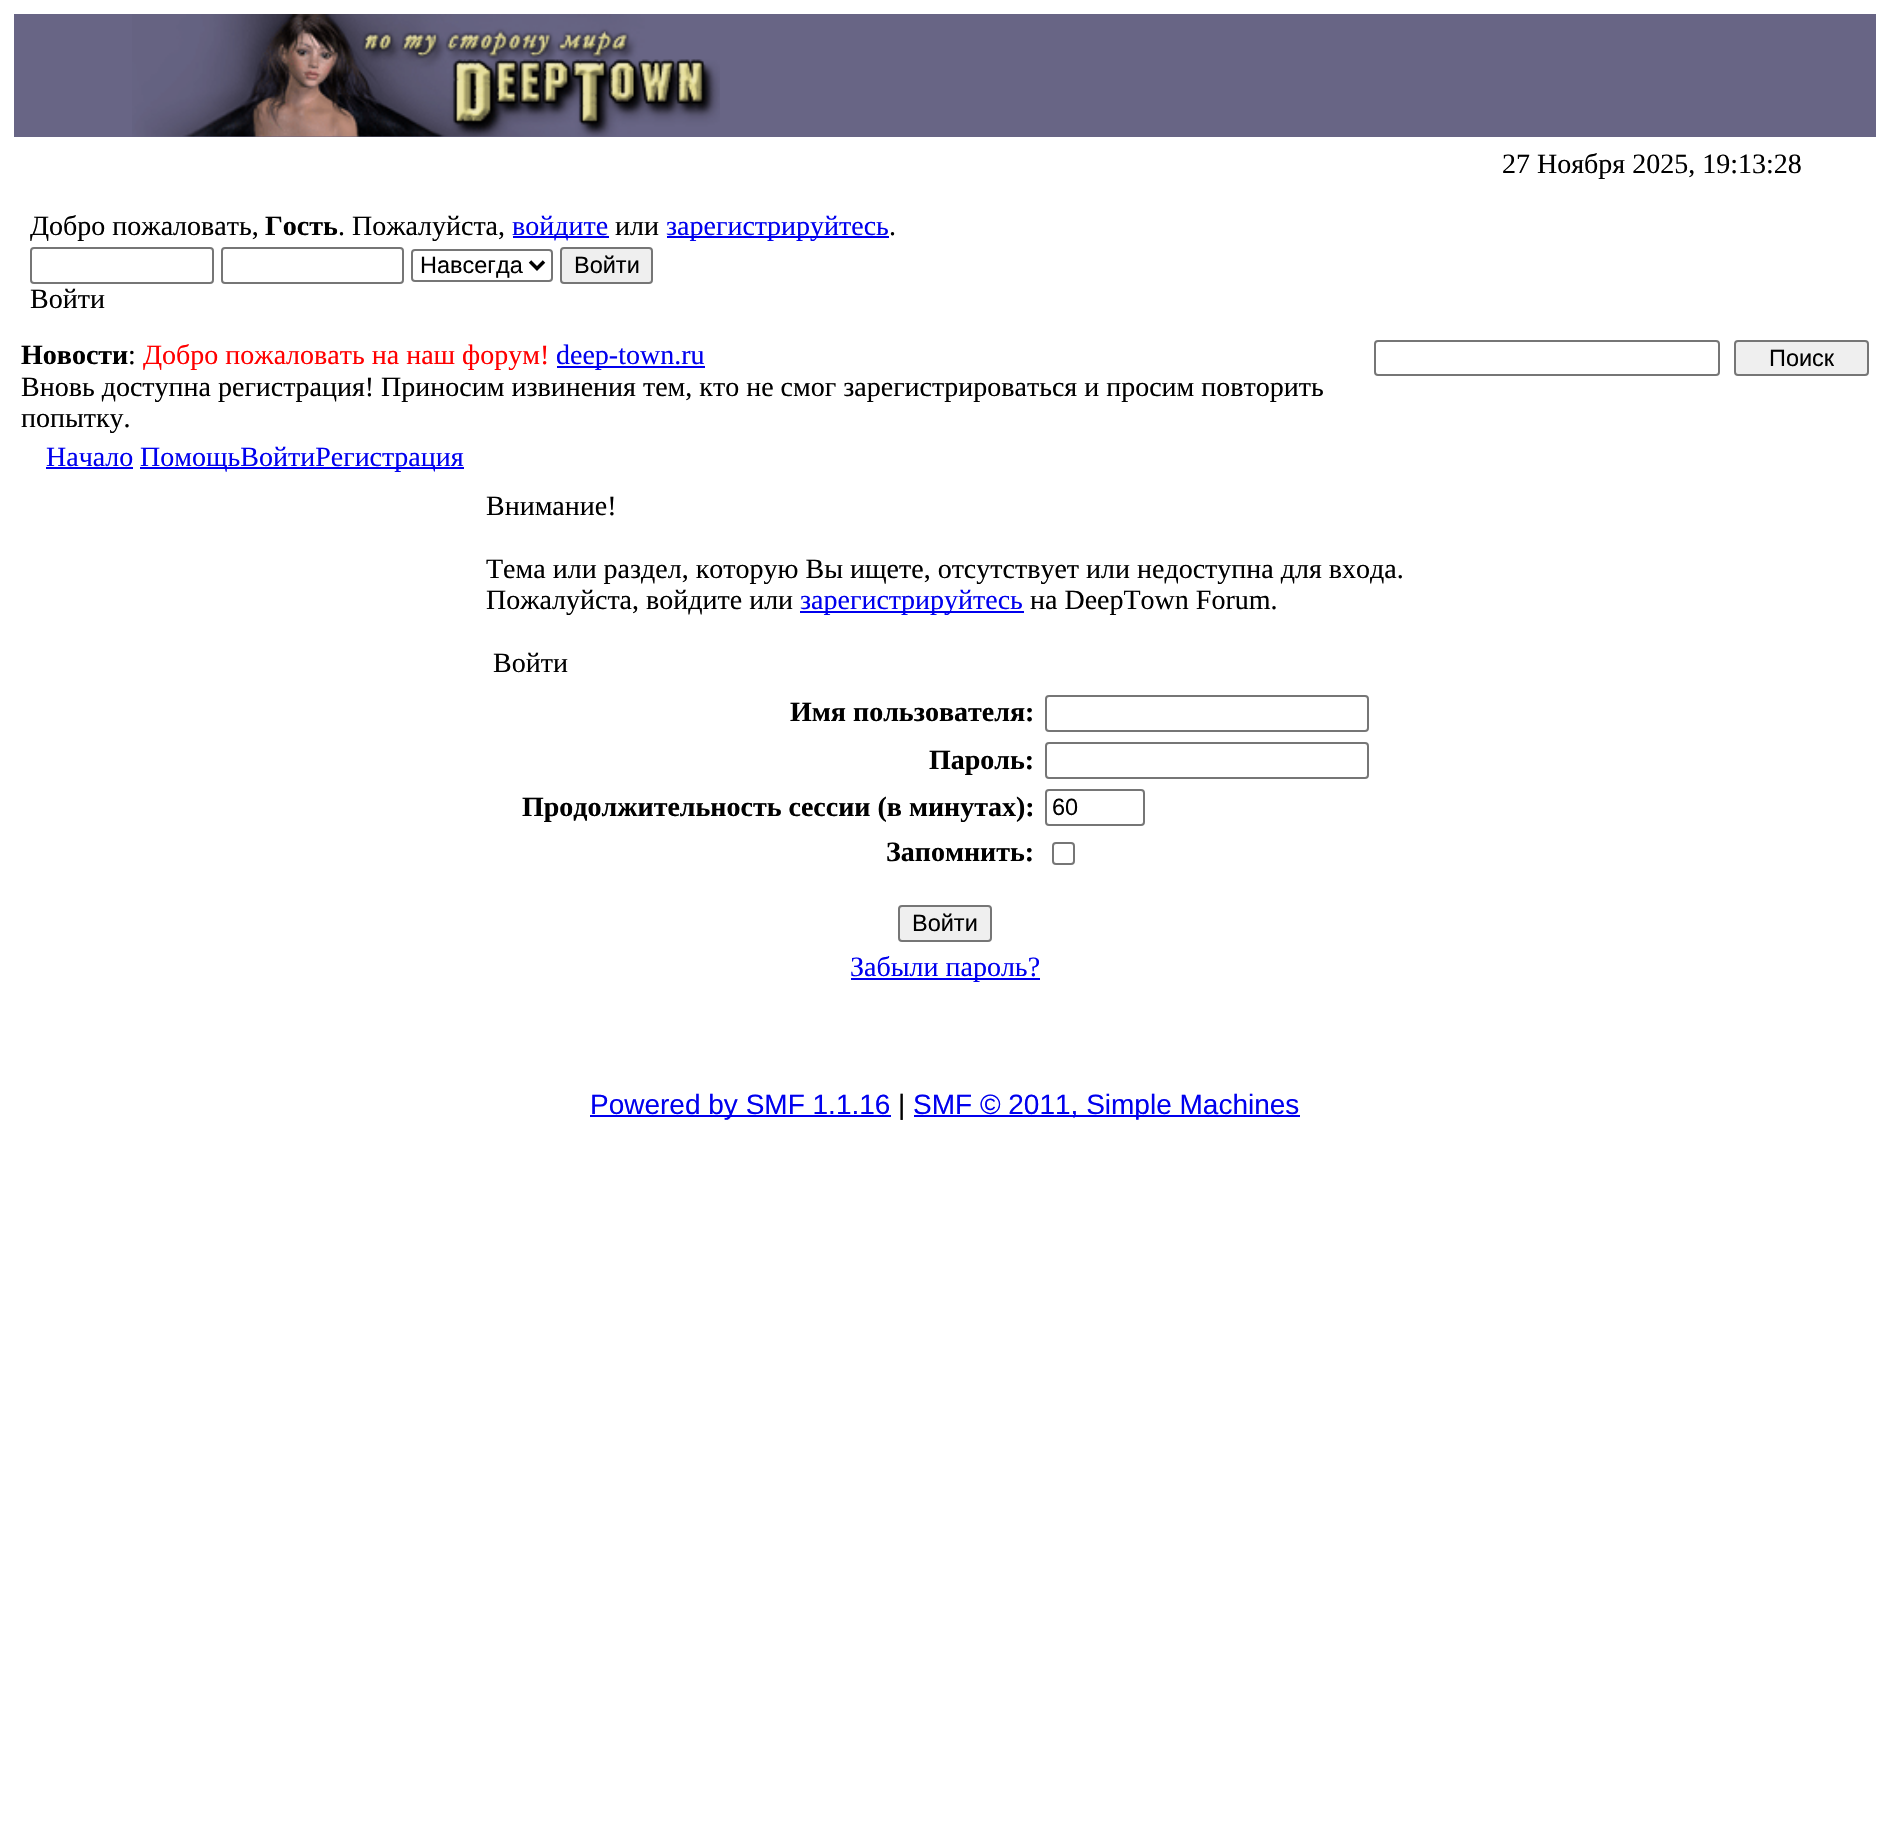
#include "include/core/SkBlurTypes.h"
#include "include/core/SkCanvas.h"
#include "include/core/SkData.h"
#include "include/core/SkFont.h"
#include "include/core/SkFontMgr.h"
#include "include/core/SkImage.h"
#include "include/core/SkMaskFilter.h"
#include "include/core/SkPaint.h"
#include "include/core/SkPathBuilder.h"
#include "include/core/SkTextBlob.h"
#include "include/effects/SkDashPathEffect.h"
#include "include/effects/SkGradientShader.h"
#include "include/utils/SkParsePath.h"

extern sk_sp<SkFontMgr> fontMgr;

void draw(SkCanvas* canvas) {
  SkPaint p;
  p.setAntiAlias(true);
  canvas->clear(SK_ColorWHITE);
  p.setColor(SkColorSetRGB(104, 101, 133));
  canvas->drawRect(SkRect::MakeLTRB(14, 14, 1876, 137), p);
  canvas->drawImageRect(SkImages::DeferredFromEncodedData(SkData::MakeFromFileName("images/1.png")), SkRect::MakeLTRB(132, 14, 720, 137), SkSamplingOptions());
  p.setColor(SkColorSetRGB(0, 0, 238));
  canvas->drawRect(SkRect::MakeLTRB(513, 236, 609, 238), p);
  canvas->drawRect(SkRect::MakeLTRB(667, 236, 889, 238), p);
  p.setStyle(SkPaint::kStroke_Style);
  p.setStrokeWidth(2);
  p.setColor(SkColorSetRGB(118, 118, 118));
  canvas->drawRoundRect(SkRect::MakeLTRB(31, 248, 213, 283), 3, 3, p);
  canvas->drawRoundRect(SkRect::MakeLTRB(222, 248, 403, 283), 3, 3, p);
  canvas->drawRoundRect(SkRect::MakeLTRB(412, 250, 552, 281), 3, 3, p);
  p.setStrokeWidth(3.5f);
  p.setColor(SK_ColorBLACK);
  canvas->drawPath(SkPathBuilder().moveTo(530, 261.5f).lineTo(537, 268.5f).lineTo(544, 261.5f).detach(), p);
  p.setStyle(SkPaint::kFill_Style);
  p.setColor(SkColorSetRGB(239, 239, 239));
  canvas->drawRoundRect(SkRect::MakeLTRB(561, 248, 652, 283), 3, 3, p);
  p.setStyle(SkPaint::kStroke_Style);
  p.setStrokeWidth(2);
  p.setColor(SkColorSetRGB(118, 118, 118));
  canvas->drawRoundRect(SkRect::MakeLTRB(561, 248, 652, 283), 3, 3, p);
  p.setStyle(SkPaint::kFill_Style);
  p.setColor(SkColorSetRGB(0, 0, 238));
  canvas->drawRect(SkRect::MakeLTRB(557, 366, 705, 368), p);
  p.setStyle(SkPaint::kStroke_Style);
  p.setColor(SkColorSetRGB(118, 118, 118));
  canvas->drawRoundRect(SkRect::MakeLTRB(1375, 341, 1719, 375), 3, 3, p);
  p.setStyle(SkPaint::kFill_Style);
  p.setColor(SkColorSetRGB(239, 239, 239));
  canvas->drawRoundRect(SkRect::MakeLTRB(1735, 341, 1868, 375), 3, 3, p);
  p.setStyle(SkPaint::kStroke_Style);
  p.setColor(SkColorSetRGB(118, 118, 118));
  canvas->drawRoundRect(SkRect::MakeLTRB(1735, 341, 1868, 375), 3, 3, p);
  p.setStyle(SkPaint::kFill_Style);
  p.setColor(SkColorSetRGB(0, 0, 238));
  canvas->drawRect(SkRect::MakeLTRB(46, 467, 133, 469), p);
  canvas->drawRect(SkRect::MakeLTRB(140, 467, 464, 469), p);
  canvas->drawRect(SkRect::MakeLTRB(800, 611, 1024, 613), p);
  p.setStyle(SkPaint::kStroke_Style);
  p.setColor(SkColorSetRGB(118, 118, 118));
  canvas->drawRoundRect(SkRect::MakeLTRB(1046, 696, 1368, 731), 3, 3, p);
  canvas->drawRoundRect(SkRect::MakeLTRB(1046, 743, 1368, 778), 3, 3, p);
  canvas->drawRoundRect(SkRect::MakeLTRB(1046, 790, 1144, 825), 3, 3, p);
  canvas->drawRoundRect(SkRect::MakeLTRB(1053, 843, 1074, 864), 3, 3, p);
  p.setStyle(SkPaint::kFill_Style);
  p.setColor(SkColorSetRGB(239, 239, 239));
  canvas->drawRoundRect(SkRect::MakeLTRB(899, 906, 991, 941), 3, 3, p);
  p.setStyle(SkPaint::kStroke_Style);
  p.setColor(SkColorSetRGB(118, 118, 118));
  canvas->drawRoundRect(SkRect::MakeLTRB(899, 906, 991, 941), 3, 3, p);
  p.setStyle(SkPaint::kFill_Style);
  p.setColor(SkColorSetRGB(0, 0, 238));
  canvas->drawRect(SkRect::MakeLTRB(851, 978, 1040, 980), p);
  canvas->drawRect(SkRect::MakeLTRB(590, 1115, 891, 1117), p);
  canvas->drawRect(SkRect::MakeLTRB(914, 1115, 1300, 1117), p);
  SkFont font1(fontMgr->matchFamilyStyle("Liberation Serif", SkFontStyle::Normal()), 28);
  font1.setSubpixel(true);
  p.setColor(SK_ColorBLACK);
  canvas->drawString("27 Ноября 2025, 19:13:28", 1502, 173, font1, p);
  canvas->drawString("Добро пожаловать,", 30, 235, font1, p);
  SkFont font2(fontMgr->matchFamilyStyle("Liberation Serif", SkFontStyle::Bold()), 28);
  font2.setSubpixel(true);
  canvas->drawString("Гость", 265, 235, font2, p);
  canvas->drawString(". Пожалуйста,", 338, 235, font1, p);
  p.setColor(SkColorSetRGB(0, 0, 238));
  canvas->drawString("войдите", 512, 235, font1, p);
  p.setColor(SK_ColorBLACK);
  canvas->drawString("или", 615, 235, font1, p);
  p.setColor(SkColorSetRGB(0, 0, 238));
  canvas->drawString("зарегистрируйтесь", 666, 235, font1, p);
  p.setColor(SK_ColorBLACK);
  canvas->drawString(".", 889, 235, font1, p);
  SkFont font3(fontMgr->matchFamilyStyle("Liberation Sans", SkFontStyle::Normal()), 23.5f);
  font3.setSubpixel(true);
  canvas->drawString("Навсегда", 420, 273, font3, p);
  canvas->drawString("Войти", 574, 273, font3, p);
  canvas->drawString("Войти", 30, 308, font1, p);
  canvas->drawString("Новости", 21, 364, font2, p);
  canvas->drawString(":", 128, 364, font1, p);
  p.setColor(SkColorSetRGB(255, 0, 0));
  canvas->drawString("Добро пожаловать на наш форум!", 143, 364, font1, p);
  p.setColor(SkColorSetRGB(0, 0, 238));
  canvas->drawString("deep-town.ru", 556, 364, font1, p);
  p.setColor(SK_ColorBLACK);
  canvas->drawString("Вновь доступна регистрация! Приносим извинения тем, кто не cмог зарегистрироваться и просим повторить", 21, 396, font1, p);
  canvas->drawString("попытку.", 21, 427, font1, p);
  canvas->drawString("Поиск", 1769, 366, font3, p);
  p.setColor(SkColorSetRGB(0, 0, 238));
  canvas->drawString("Начало", 46, 466, font1, p);
  canvas->drawString("ПомощьВойтиРегистрация", 140, 466, font1, p);
  p.setColor(SK_ColorBLACK);
  canvas->drawString("Внимание!", 486, 515, font1, p);
  canvas->drawString("Тема или раздел, которую Вы ищете, отсутствует или недоступна для входа.", 486, 578, font1, p);
  canvas->drawString("Пожалуйста, войдите или", 486, 609, font1, p);
  p.setColor(SkColorSetRGB(0, 0, 238));
  canvas->drawString("зарегистрируйтесь", 800, 609, font1, p);
  p.setColor(SK_ColorBLACK);
  canvas->drawString("на DeepTown Forum.", 1030, 609, font1, p);
  canvas->drawString("Войти", 493, 672, font1, p);
  canvas->drawString("Имя пользователя:", 790, 721, font2, p);
  canvas->drawString("Пароль:", 929, 769, font2, p);
  canvas->drawString("Продолжительность сессии (в минутах):", 522, 816, font2, p);
  canvas->drawString("60", 1052, 815, font3, p);
  canvas->drawString("Запомнить:", 886, 861, font2, p);
  canvas->drawString("Войти", 912, 931, font3, p);
  p.setColor(SkColorSetRGB(0, 0, 238));
  canvas->drawString("Забыли пароль?", 850, 976, font1, p);
  SkFont font4(fontMgr->matchFamilyStyle("Liberation Sans", SkFontStyle::Normal()), 28);
  font4.setSubpixel(true);
  canvas->drawString("Powered by SMF 1.1.16", 590, 1114, font4, p);
  p.setColor(SK_ColorBLACK);
  canvas->drawString("|", 898, 1114, font4, p);
  p.setColor(SkColorSetRGB(0, 0, 238));
  canvas->drawString("SMF © 2011, Simple Machines", 913, 1114, font4, p);
}
